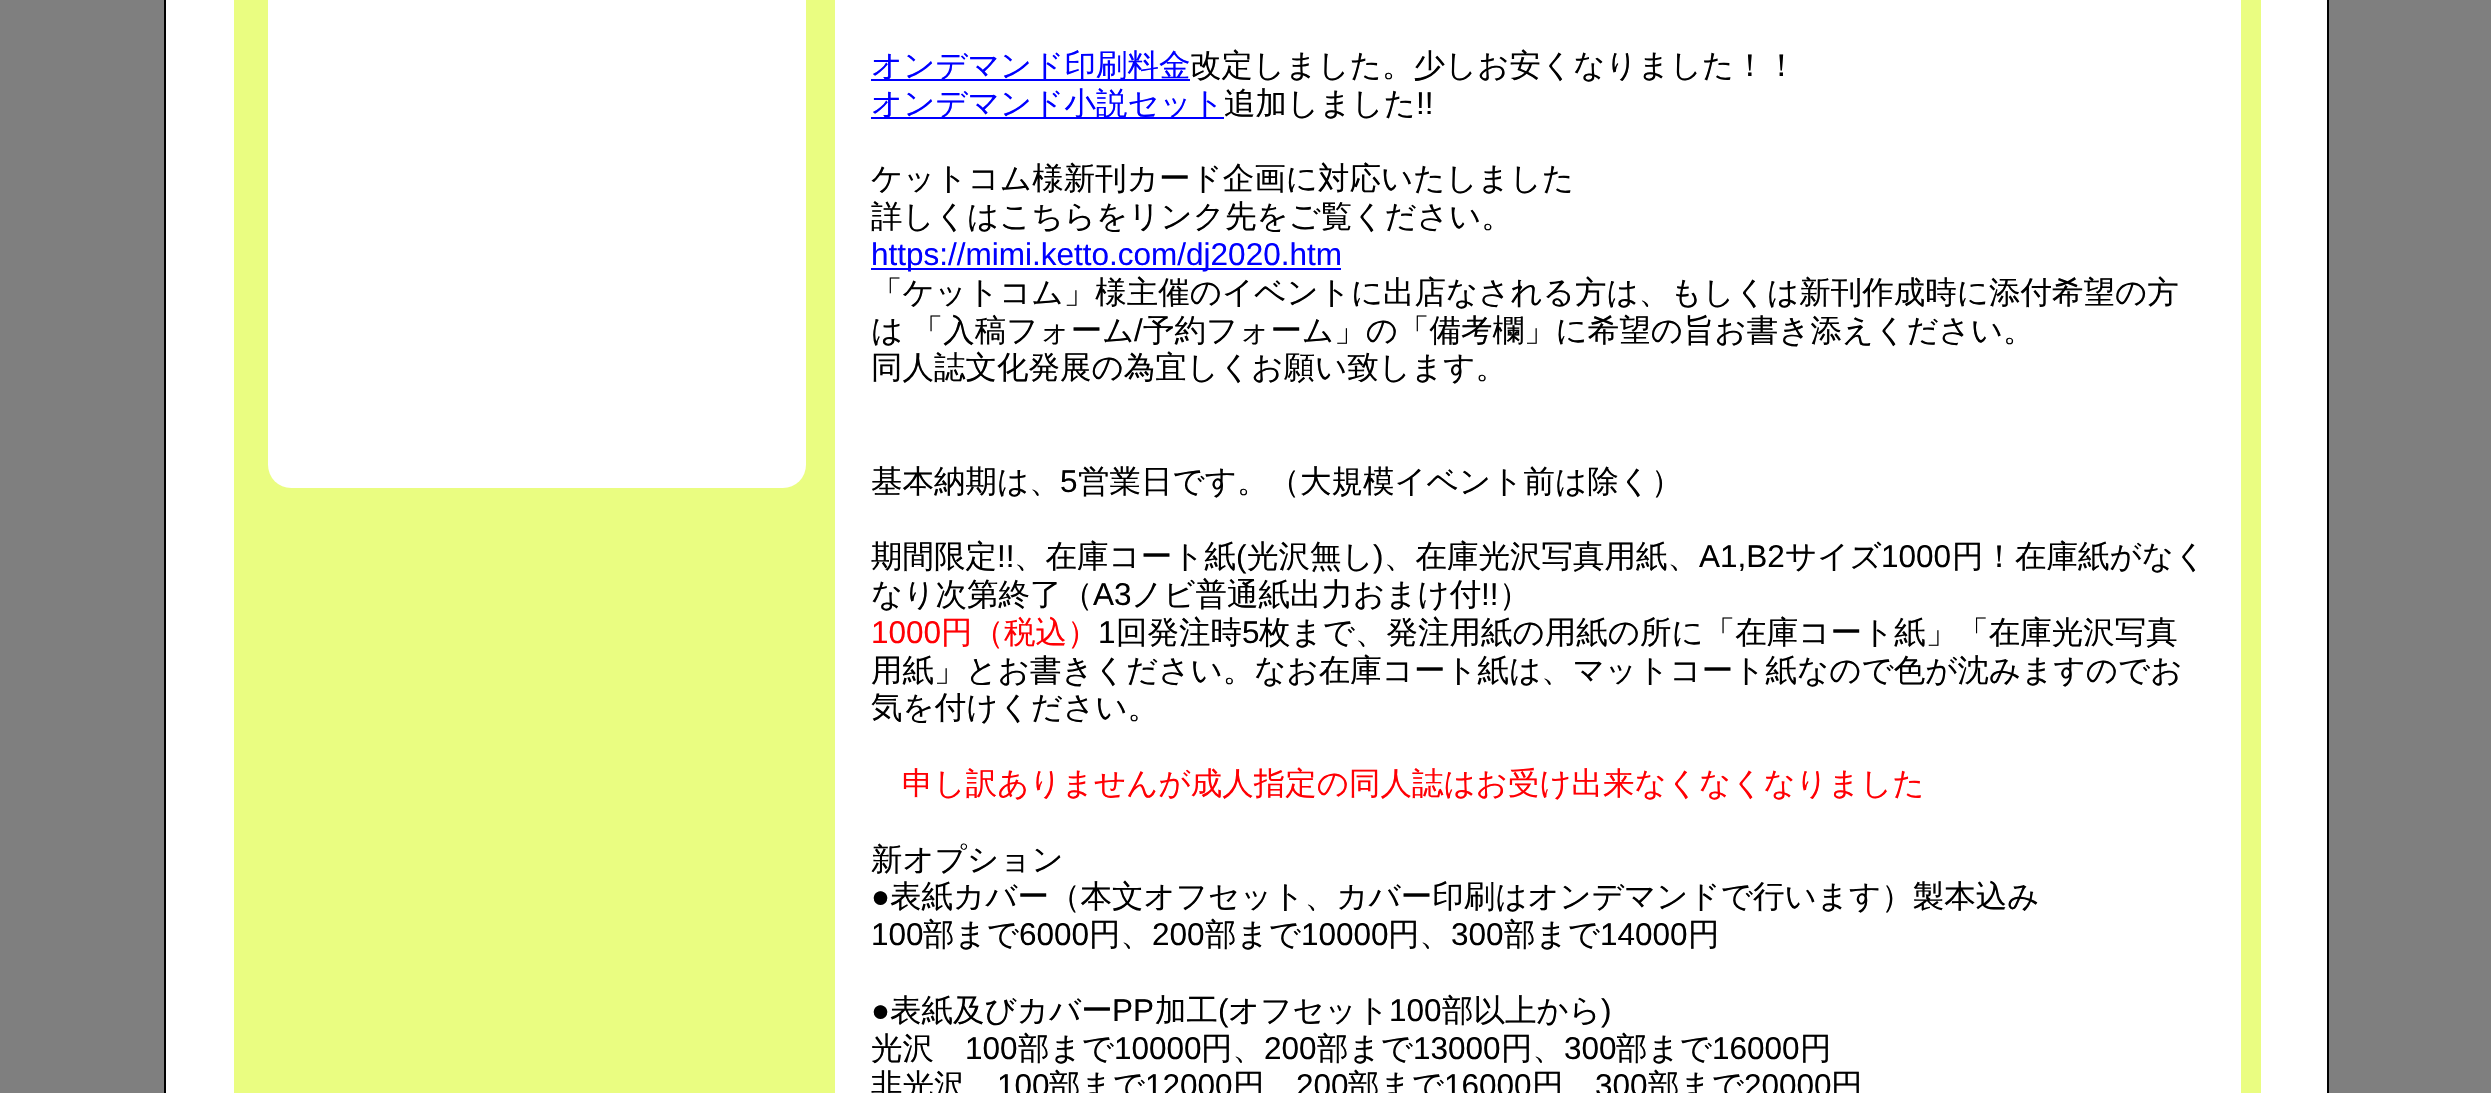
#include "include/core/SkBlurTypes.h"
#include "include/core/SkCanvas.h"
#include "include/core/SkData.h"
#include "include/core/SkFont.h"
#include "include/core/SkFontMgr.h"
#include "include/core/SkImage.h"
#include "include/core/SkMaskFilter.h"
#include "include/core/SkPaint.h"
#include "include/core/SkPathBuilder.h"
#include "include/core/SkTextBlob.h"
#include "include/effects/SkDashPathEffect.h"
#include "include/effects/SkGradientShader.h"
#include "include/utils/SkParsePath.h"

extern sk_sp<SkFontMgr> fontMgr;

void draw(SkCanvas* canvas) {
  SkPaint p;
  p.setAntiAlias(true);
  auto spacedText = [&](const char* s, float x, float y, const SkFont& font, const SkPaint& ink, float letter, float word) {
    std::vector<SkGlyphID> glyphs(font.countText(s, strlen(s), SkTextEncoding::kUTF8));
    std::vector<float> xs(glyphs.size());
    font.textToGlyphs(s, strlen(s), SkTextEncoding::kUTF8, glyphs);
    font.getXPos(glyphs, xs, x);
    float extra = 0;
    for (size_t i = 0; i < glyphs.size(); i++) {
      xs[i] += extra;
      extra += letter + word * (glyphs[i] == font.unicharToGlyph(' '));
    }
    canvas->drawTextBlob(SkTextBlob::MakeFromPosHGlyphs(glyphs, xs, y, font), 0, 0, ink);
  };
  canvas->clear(SkColorSetRGB(127, 127, 127));
  p.setColor(SK_ColorWHITE);
  canvas->drawRect(SkRect::MakeLTRB(165, -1, 2328, 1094), p);
  p.setStyle(SkPaint::kStroke_Style);
  p.setStrokeWidth(2);
  p.setColor(SK_ColorBLACK);
  canvas->drawRect(SkRect::MakeLTRB(165, -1, 2328, 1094), p);
  p.setStyle(SkPaint::kFill_Style);
  p.setColor(SkColorSetRGB(234, 253, 129));
  canvas->drawRect(SkRect::MakeLTRB(234, 0, 2261, 1093), p);
  p.setColor(SK_ColorWHITE);
  canvas->drawRoundRect(SkRect::MakeLTRB(268, -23, 806, 488), 23, 23, p);
  canvas->drawRect(SkRect::MakeLTRB(835, 0, 2241, 1093), p);
  p.setColor(SkColorSetRGB(0, 0, 255));
  canvas->drawRect(SkRect::MakeLTRB(871, 79, 1190, 81), p);
  canvas->drawRect(SkRect::MakeLTRB(871, 117, 1224, 119), p);
  canvas->drawRect(SkRect::MakeLTRB(871, 268, 1341, 270), p);
  SkFont font1(fontMgr->matchFamilyStyle("WenQuanYi Zen Hei", SkFontStyle(500, SkFontStyle::kNormal_Width, SkFontStyle::kUpright_Slant)), 31.5f);
  font1.setSubpixel(true);
  canvas->drawString("オンデマンド印刷料金", 871, 76, font1, p);
  p.setColor(SK_ColorBLACK);
  canvas->drawString("改定しました。少しお安くなりました！！", 1190, 76, font1, p);
  p.setColor(SkColorSetRGB(0, 0, 255));
  canvas->drawString("オンデマンド小説セット", 871, 114, font1, p);
  p.setColor(SK_ColorBLACK);
  canvas->drawString("追加しました", 1224, 114, font1, p);
  SkFont font2(fontMgr->matchFamilyStyle("Liberation Sans", SkFontStyle::Normal()), 31.5f);
  font2.setSubpixel(true);
  canvas->drawString("!!", 1416, 114, font2, p);
  canvas->drawString("ケットコム様新刊カード企画に対応いたしました", 871, 189, font1, p);
  canvas->drawString("詳しくはこちらをリンク先をご覧ください。", 871, 227, font1, p);
  p.setColor(SkColorSetRGB(0, 0, 255));
  canvas->drawString("https://mimi.ketto.com/dj2020.htm", 871, 265, font2, p);
  p.setColor(SK_ColorBLACK);
  canvas->drawString("「ケットコム」様主催のイベントに出店なされる方は、もしくは新刊作成時に添付希望の方", 871, 303, font1, p);
  spacedText("は 「入稿フォーム", 871, 341, font1, p, 0, -1);
  canvas->drawString("/", 1134, 341, font2, p);
  canvas->drawString("予約フォーム」の「備考欄」に希望の旨お書き添えください。", 1143, 341, font1, p);
  canvas->drawString("同人誌文化発展の為宜しくお願い致します。", 871, 378, font1, p);
  canvas->drawString("基本納期は、", 871, 492, font1, p);
  canvas->drawString("5", 1060, 492, font2, p);
  canvas->drawString("営業日です。（大規模イベント前は除く）", 1078, 492, font1, p);
  canvas->drawString("期間限定", 871, 567, font1, p);
  canvas->drawString("!!", 997, 567, font2, p);
  canvas->drawString("、在庫コート紙", 1014, 567, font1, p);
  canvas->drawString("(", 1236, 567, font2, p);
  canvas->drawString("光沢無し", 1247, 567, font1, p);
  canvas->drawString(")", 1373, 567, font2, p);
  canvas->drawString("、在庫光沢写真用紙、", 1384, 567, font1, p);
  canvas->drawString("A1,B2", 1699, 567, font2, p);
  canvas->drawString("サイズ", 1785, 567, font1, p);
  canvas->drawString("1000", 1881, 567, font2, p);
  canvas->drawString("円！在庫紙がなく", 1952, 567, font1, p);
  canvas->drawString("なり次第終了（", 871, 605, font1, p);
  canvas->drawString("A3", 1093, 605, font2, p);
  canvas->drawString("ノビ普通紙出力おまけ付", 1131, 605, font1, p);
  canvas->drawString("!!", 1481, 605, font2, p);
  canvas->drawString("）", 1499, 605, font1, p);
  p.setColor(SkColorSetRGB(255, 0, 4));
  canvas->drawString("1000", 871, 643, font2, p);
  canvas->drawString("円（税込）", 941, 643, font1, p);
  p.setColor(SK_ColorBLACK);
  canvas->drawString("1", 1098, 643, font2, p);
  canvas->drawString("回発注時", 1116, 643, font1, p);
  canvas->drawString("5", 1242, 643, font2, p);
  canvas->drawString("枚まで、発注用紙の用紙の所に「在庫コート紙」「在庫光沢写真", 1259, 643, font1, p);
  canvas->drawString("用紙」とお書きください。なお在庫コート紙は、マットコート紙なので色が沈みますのでお", 871, 681, font1, p);
  canvas->drawString("気を付けください。", 871, 718, font1, p);
  p.setColor(SkColorSetRGB(255, 0, 4));
  canvas->drawString("申し訳ありませんが成人指定の同人誌はお受け出来なくなくなりました", 902, 794, font1, p);
  p.setColor(SK_ColorBLACK);
  canvas->drawString("新オプション", 871, 870, font1, p);
  canvas->drawString("●", 871, 907, font2, p);
  canvas->drawString("表紙カバー（本文オフセット、カバー印刷はオンデマンドで行います）製本込み", 890, 907, font1, p);
  canvas->drawString("100", 871, 945, font2, p);
  canvas->drawString("部まで", 923, 945, font1, p);
  canvas->drawString("6000", 1019, 945, font2, p);
  canvas->drawString("円、", 1089, 945, font1, p);
  canvas->drawString("200", 1152, 945, font2, p);
  canvas->drawString("部まで", 1205, 945, font1, p);
  canvas->drawString("10000", 1301, 945, font2, p);
  canvas->drawString("円、", 1388, 945, font1, p);
  canvas->drawString("300", 1451, 945, font2, p);
  canvas->drawString("部まで", 1504, 945, font1, p);
  canvas->drawString("14000", 1600, 945, font2, p);
  canvas->drawString("円", 1688, 945, font1, p);
  canvas->drawString("●", 871, 1021, font2, p);
  canvas->drawString("表紙及びカバー", 890, 1021, font1, p);
  canvas->drawString("PP", 1112, 1021, font2, p);
  canvas->drawString("加工", 1155, 1021, font1, p);
  canvas->drawString("(", 1218, 1021, font2, p);
  canvas->drawString("オフセット", 1228, 1021, font1, p);
  canvas->drawString("100", 1389, 1021, font2, p);
  canvas->drawString("部以上から", 1442, 1021, font1, p);
  canvas->drawString(")", 1601, 1021, font2, p);
  canvas->drawString("光沢", 871, 1059, font1, p);
  canvas->drawString("100", 965, 1059, font2, p);
  canvas->drawString("部まで", 1018, 1059, font1, p);
  canvas->drawString("10000", 1114, 1059, font2, p);
  canvas->drawString("円、", 1201, 1059, font1, p);
  canvas->drawString("200", 1264, 1059, font2, p);
  canvas->drawString("部まで", 1317, 1059, font1, p);
  canvas->drawString("13000", 1413, 1059, font2, p);
  canvas->drawString("円、", 1501, 1059, font1, p);
  canvas->drawString("300", 1564, 1059, font2, p);
  canvas->drawString("部まで", 1616, 1059, font1, p);
  canvas->drawString("16000", 1712, 1059, font2, p);
  canvas->drawString("円", 1800, 1059, font1, p);
  canvas->drawString("非光沢", 871, 1096, font1, p);
  canvas->drawString("100", 997, 1096, font2, p);
  canvas->drawString("部まで", 1049, 1096, font1, p);
  canvas->drawString("12000", 1145, 1096, font2, p);
  canvas->drawString("円", 1233, 1096, font1, p);
  canvas->drawString("200", 1296, 1096, font2, p);
  canvas->drawString("部まで", 1348, 1096, font1, p);
  canvas->drawString("16000", 1444, 1096, font2, p);
  canvas->drawString("円", 1532, 1096, font1, p);
  canvas->drawString("300", 1595, 1096, font2, p);
  canvas->drawString("部まで", 1648, 1096, font1, p);
  canvas->drawString("20000", 1744, 1096, font2, p);
  canvas->drawString("円", 1831, 1096, font1, p);
}
